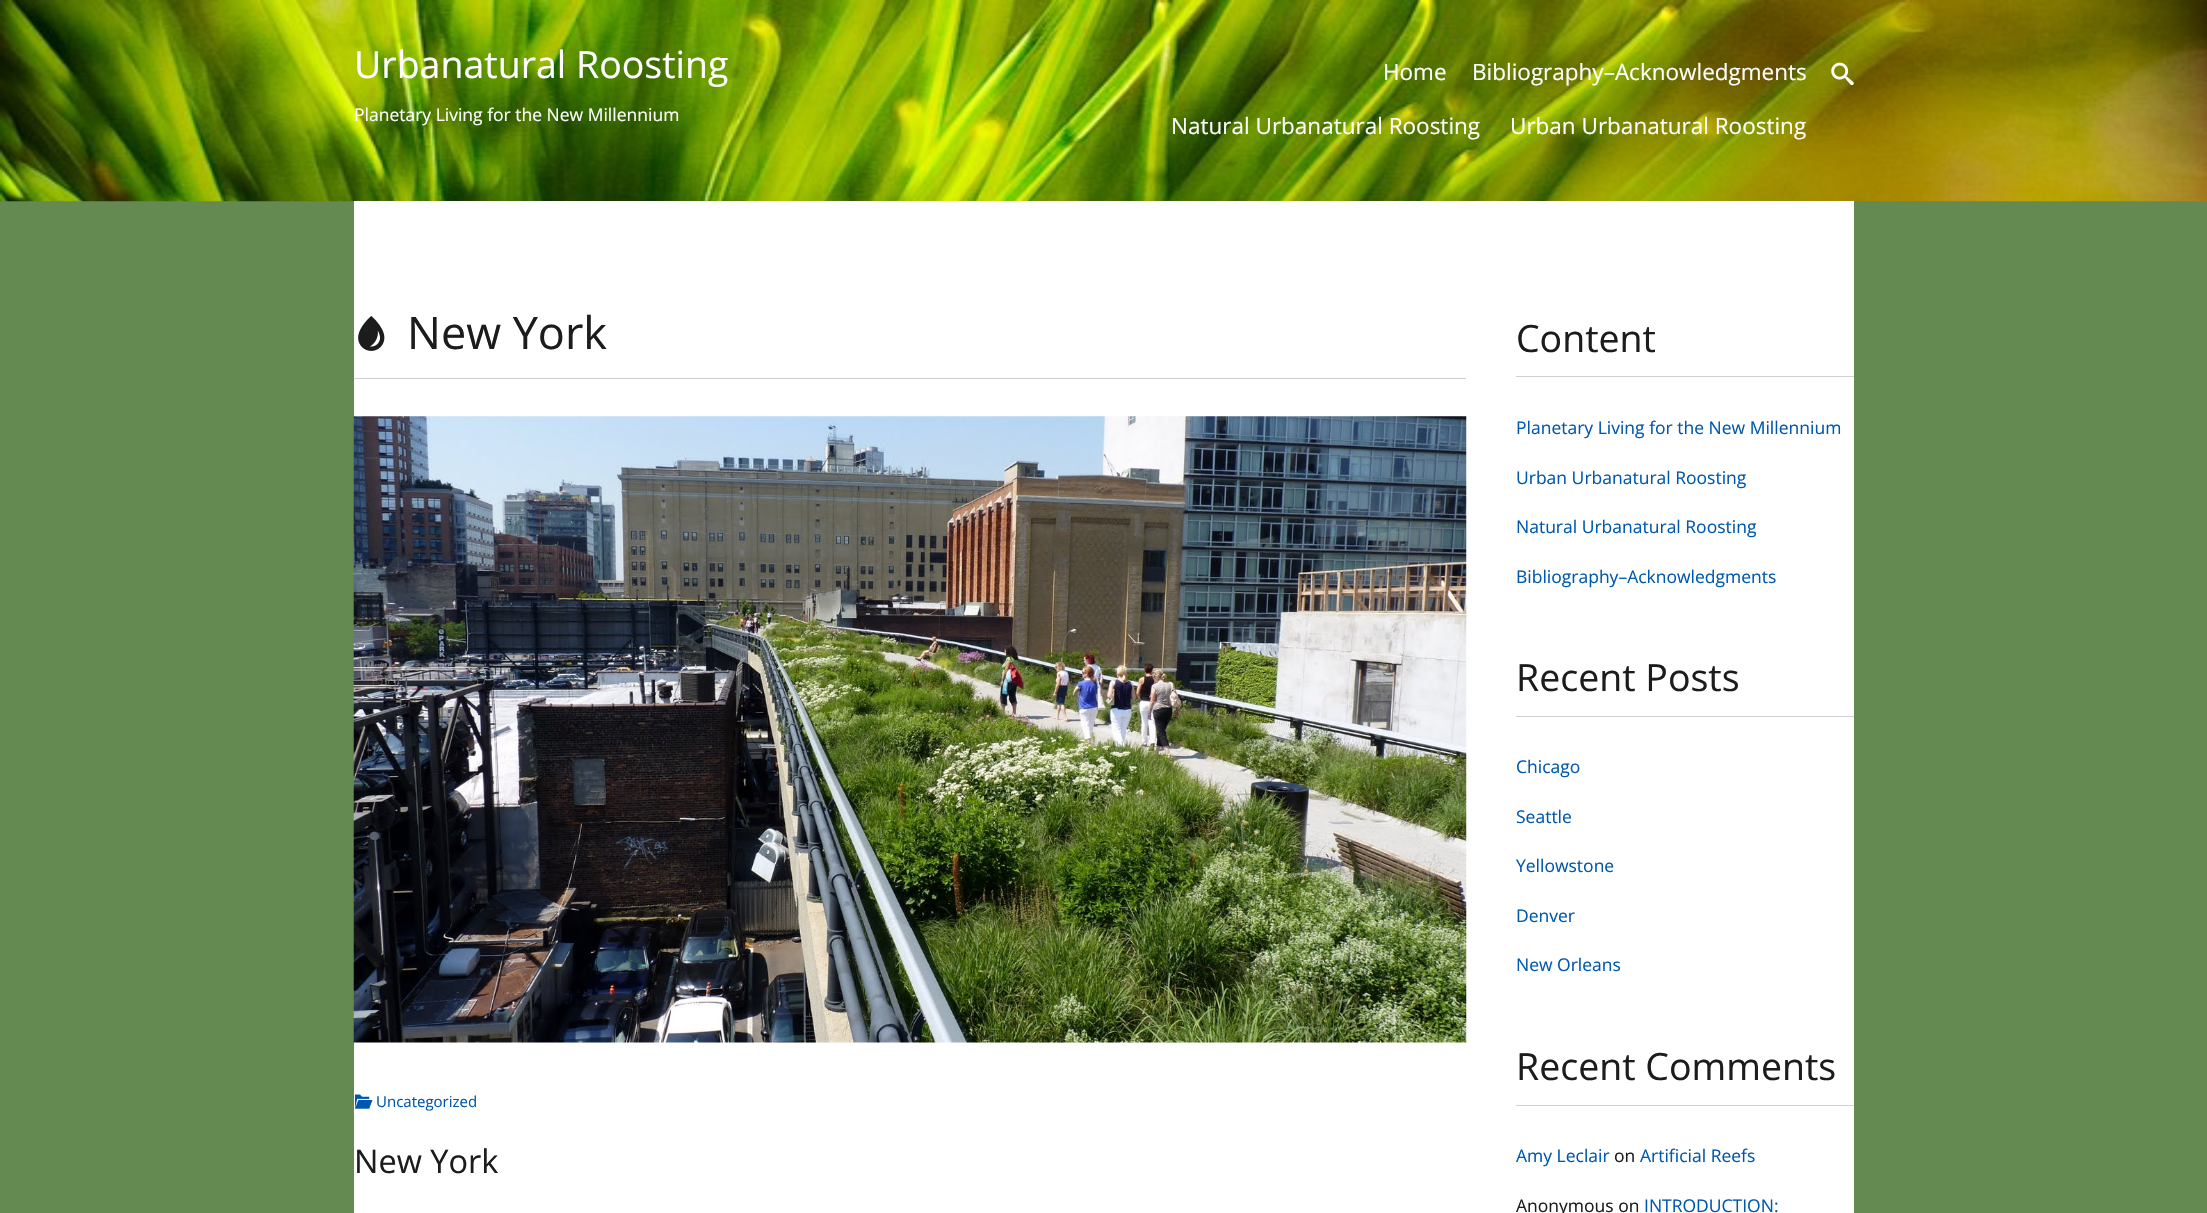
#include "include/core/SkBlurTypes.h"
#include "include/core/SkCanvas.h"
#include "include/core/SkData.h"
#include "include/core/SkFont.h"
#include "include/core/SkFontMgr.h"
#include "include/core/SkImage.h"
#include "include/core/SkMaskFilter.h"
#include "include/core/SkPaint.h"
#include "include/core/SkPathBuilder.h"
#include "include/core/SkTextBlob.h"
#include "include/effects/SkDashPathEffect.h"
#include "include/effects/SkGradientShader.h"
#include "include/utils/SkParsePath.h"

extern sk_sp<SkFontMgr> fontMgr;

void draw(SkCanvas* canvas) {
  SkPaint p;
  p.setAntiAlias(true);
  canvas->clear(SkColorSetRGB(100, 137, 81));
  canvas->drawImageRect(SkImages::DeferredFromEncodedData(SkData::MakeFromFileName("images/1.png")), SkRect::MakeLTRB(0, 0, 2207, 202), SkSamplingOptions());
  canvas->drawImageRect(SkImages::DeferredFromEncodedData(SkData::MakeFromFileName("images/2.png")), SkRect::MakeLTRB(1831, 62, 1854, 86), SkSamplingOptions());
  p.setColor(SK_ColorWHITE);
  canvas->drawRect(SkRect::MakeLTRB(354, 201, 1854, 1213), p);
  p.setColor(SkColorSetRGB(205, 208, 212));
  canvas->drawRect(SkRect::MakeLTRB(354, 378, 1466, 379), p);
  canvas->drawImageRect(SkImages::DeferredFromEncodedData(SkData::MakeFromFileName("images/3.png")), SkRect::MakeLTRB(358, 316, 385, 351), SkSamplingOptions());
  canvas->drawImageRect(SkImages::DeferredFromEncodedData(SkData::MakeFromFileName("images/4.png")), SkRect::MakeLTRB(353, 416, 1467, 1043), SkSamplingOptions());
  canvas->drawImageRect(SkImages::DeferredFromEncodedData(SkData::MakeFromFileName("images/5.png")), SkRect::MakeLTRB(355, 1094, 373, 1109), SkSamplingOptions());
  canvas->drawRect(SkRect::MakeLTRB(1516, 376, 1854, 377), p);
  canvas->drawRect(SkRect::MakeLTRB(1516, 716, 1854, 717), p);
  canvas->drawRect(SkRect::MakeLTRB(1516, 1105, 1854, 1106), p);
  SkFont font1(fontMgr->matchFamilyStyle("Open Sans", SkFontStyle::Normal()), 37.5f);
  font1.setSubpixel(true);
  p.setColor(SK_ColorWHITE);
  canvas->drawString("Urbanatural Roosting", 354, 78, font1, p);
  SkFont font2(fontMgr->matchFamilyStyle("Open Sans", SkFontStyle::Normal()), 17.5f);
  font2.setSubpixel(true);
  canvas->drawString("Planetary Living for the New Millennium", 354, 121, font2, p);
  SkFont font3(fontMgr->matchFamilyStyle("Open Sans", SkFontStyle::Normal()), 22.5f);
  font3.setSubpixel(true);
  canvas->drawString("Home", 1383, 80, font3, p);
  canvas->drawString("Bibliography–Acknowledgments", 1472, 80, font3, p);
  canvas->drawString("Natural Urbanatural Roosting", 1171, 134, font3, p);
  canvas->drawString("Urban Urbanatural Roosting", 1510, 134, font3, p);
  SkFont font4(fontMgr->matchFamilyStyle("Open Sans", SkFontStyle::Normal()), 45);
  font4.setSubpixel(true);
  p.setColor(SkColorSetRGB(28, 28, 28));
  canvas->drawString("New York", 407, 349, font4, p);
  SkFont font5(fontMgr->matchFamilyStyle("Open Sans", SkFontStyle::Normal()), 15);
  font5.setSubpixel(true);
  p.setColor(SkColorSetRGB(0, 88, 174));
  canvas->drawString("Uncategorized", 376, 1107, font5, p);
  SkFont font6(fontMgr->matchFamilyStyle("Open Sans", SkFontStyle::Normal()), 32.5f);
  font6.setSubpixel(true);
  p.setColor(SkColorSetRGB(28, 28, 28));
  canvas->drawString("New York", 354, 1173, font6, p);
  canvas->drawString("Content", 1516, 352, font1, p);
  p.setColor(SkColorSetRGB(0, 88, 174));
  canvas->drawString("Planetary Living for the New Millennium", 1516, 434, font2, p);
  canvas->drawString("Urban Urbanatural Roosting", 1516, 484, font2, p);
  canvas->drawString("Natural Urbanatural Roosting", 1516, 533, font2, p);
  canvas->drawString("Bibliography–Acknowledgments", 1516, 583, font2, p);
  p.setColor(SkColorSetRGB(28, 28, 28));
  canvas->drawString("Recent Posts", 1516, 691, font1, p);
  p.setColor(SkColorSetRGB(0, 88, 174));
  canvas->drawString("Chicago", 1516, 773, font2, p);
  canvas->drawString("Seattle", 1516, 823, font2, p);
  canvas->drawString("Yellowstone", 1516, 872, font2, p);
  canvas->drawString("Denver", 1516, 922, font2, p);
  canvas->drawString("New Orleans", 1516, 971, font2, p);
  p.setColor(SkColorSetRGB(28, 28, 28));
  canvas->drawString("Recent Comments", 1516, 1080, font1, p);
  p.setColor(SkColorSetRGB(0, 88, 174));
  canvas->drawString("Amy Leclair", 1516, 1162, font2, p);
  p.setColor(SkColorSetRGB(28, 28, 28));
  canvas->drawString("on", 1614, 1162, font2, p);
  p.setColor(SkColorSetRGB(0, 88, 174));
  canvas->drawString("Artificial Reefs", 1640, 1162, font2, p);
  p.setColor(SkColorSetRGB(28, 28, 28));
  canvas->drawString("Anonymous on", 1516, 1212, font2, p);
  p.setColor(SkColorSetRGB(0, 88, 174));
  canvas->drawString("INTRODUCTION:", 1644, 1212, font2, p);
}
